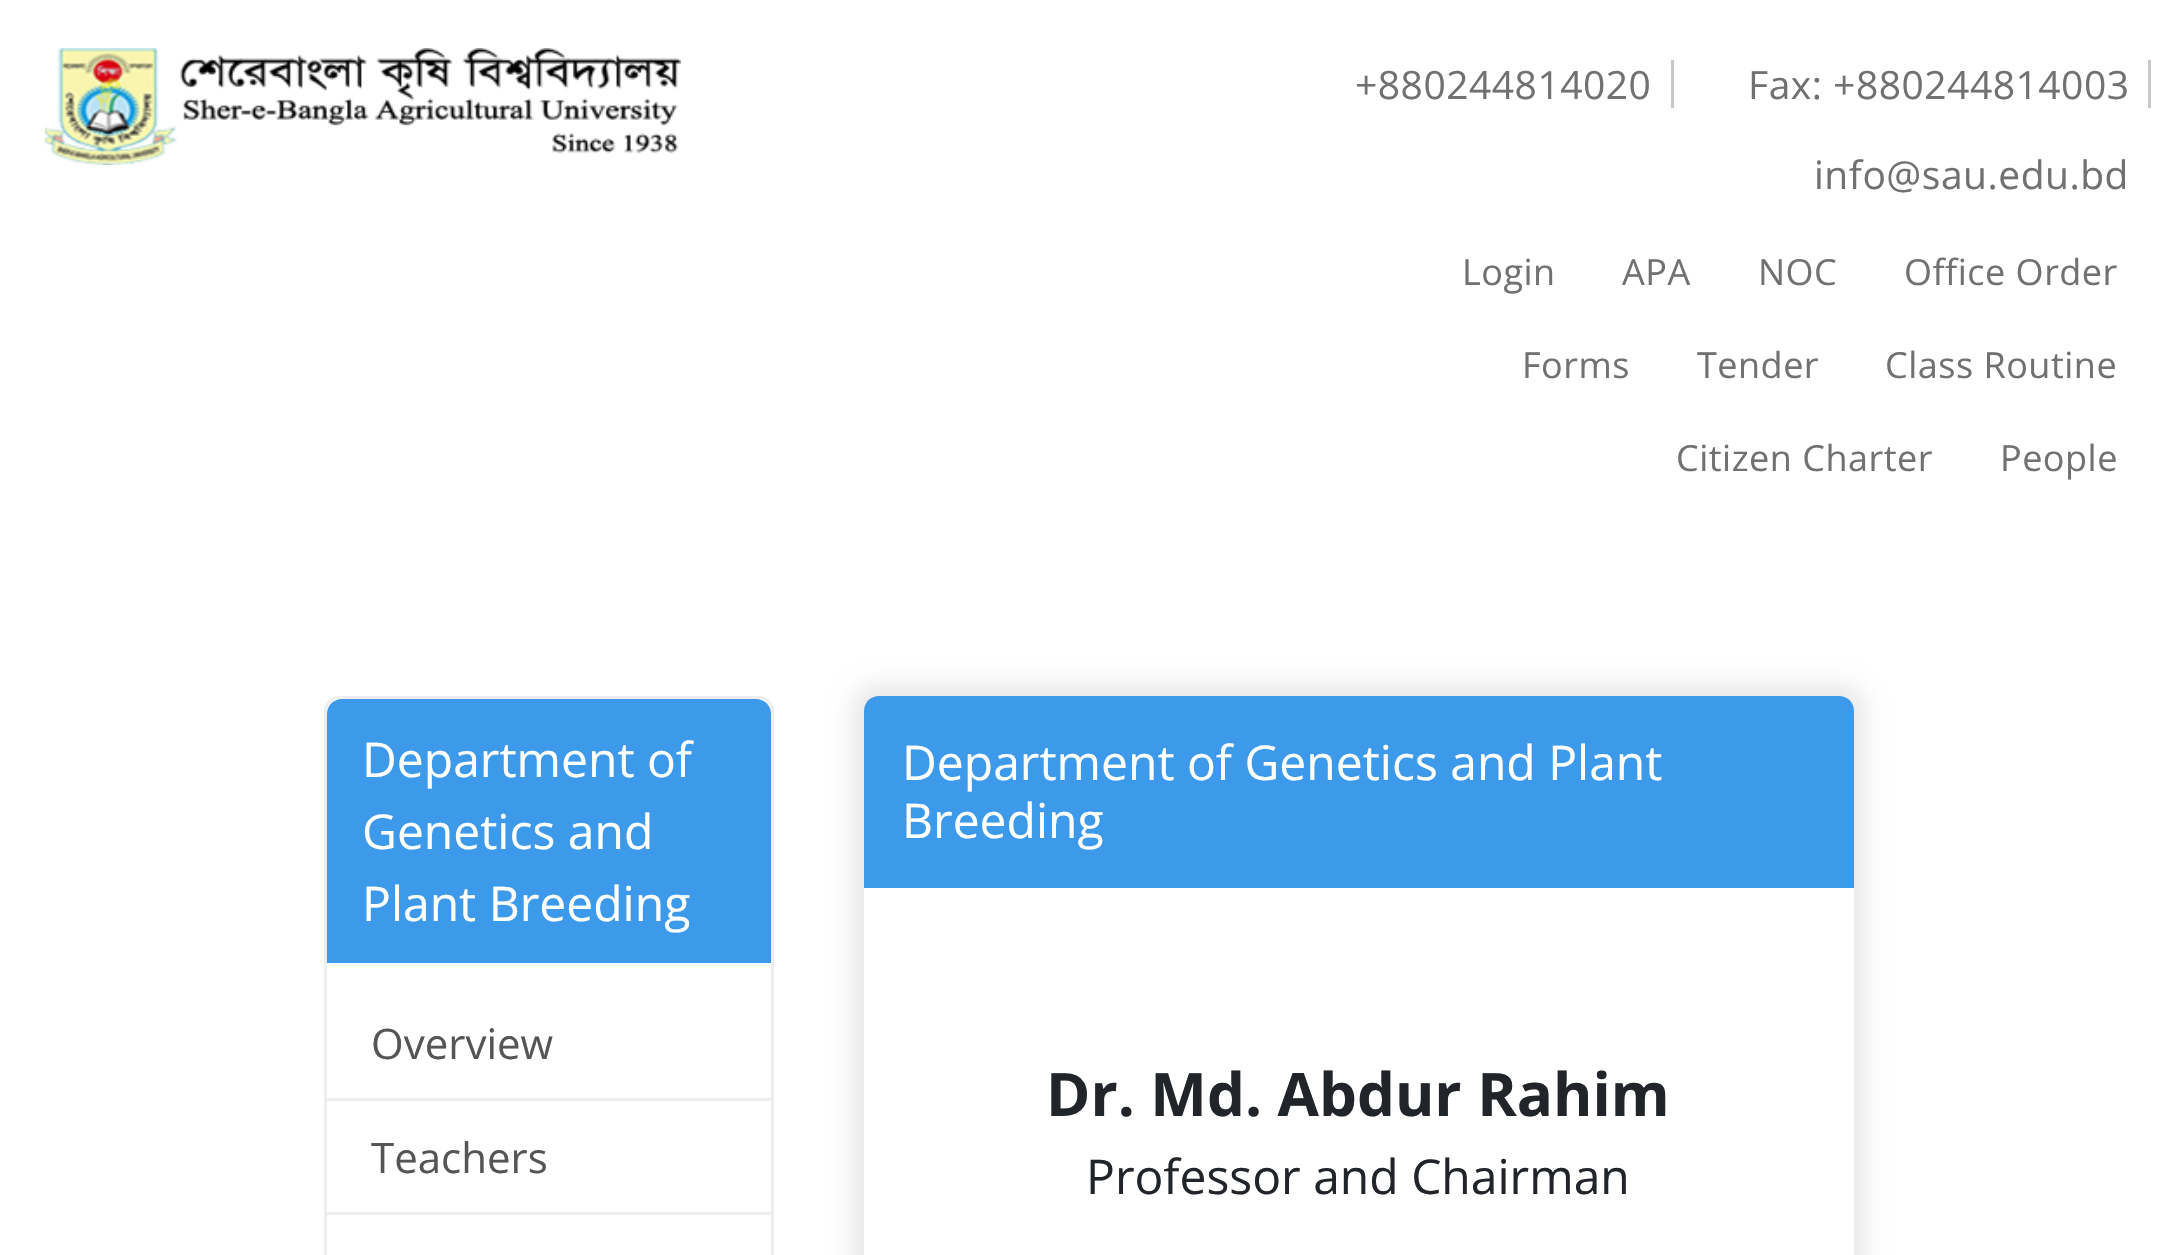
#include "include/core/SkBlurTypes.h"
#include "include/core/SkCanvas.h"
#include "include/core/SkData.h"
#include "include/core/SkFont.h"
#include "include/core/SkFontMgr.h"
#include "include/core/SkImage.h"
#include "include/core/SkMaskFilter.h"
#include "include/core/SkPaint.h"
#include "include/core/SkPathBuilder.h"
#include "include/core/SkTextBlob.h"
#include "include/effects/SkDashPathEffect.h"
#include "include/effects/SkGradientShader.h"
#include "include/utils/SkParsePath.h"

extern sk_sp<SkFontMgr> fontMgr;

void draw(SkCanvas* canvas) {
  SkPaint p;
  p.setAntiAlias(true);
  auto spacedText = [&](const char* s, float x, float y, const SkFont& font, const SkPaint& ink, float letter, float word) {
    std::vector<SkGlyphID> glyphs(font.countText(s, strlen(s), SkTextEncoding::kUTF8));
    std::vector<float> xs(glyphs.size());
    font.textToGlyphs(s, strlen(s), SkTextEncoding::kUTF8, glyphs);
    font.getXPos(glyphs, xs, x);
    float extra = 0;
    for (size_t i = 0; i < glyphs.size(); i++) {
      xs[i] += extra;
      extra += letter + word * (glyphs[i] == font.unicharToGlyph(' '));
    }
    canvas->drawTextBlob(SkTextBlob::MakeFromPosHGlyphs(glyphs, xs, y, font), 0, 0, ink);
  };
  canvas->clear(SK_ColorWHITE);
  canvas->drawImageRect(SkImages::DeferredFromEncodedData(SkData::MakeFromFileName("images/1.png")), SkRect::MakeLTRB(45, 48, 681, 165), SkSamplingOptions());
  p.setColor(SkColorSetRGB(199, 199, 199));
  canvas->drawRect(SkRect::MakeLTRB(1671, 60, 1674, 108), p);
  canvas->drawRect(SkRect::MakeLTRB(2148, 60, 2151, 108), p);
  p.setStyle(SkPaint::kStroke_Style);
  p.setStrokeWidth(3);
  p.setColor(SkColorSetRGB(238, 238, 238));
  canvas->drawRoundRect(SkRect::MakeLTRB(325.5f, 697.5f, 772.5f, 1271.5f), 13.5f, 13.5f, p);
  p.setStyle(SkPaint::kFill_Style);
  p.setColor(SkColorSetRGB(61, 154, 234));
  canvas->drawPath(SkPathBuilder().moveTo(342, 699).lineTo(756, 699).cubicTo(764.5f, 699, 771, 705.5f, 771, 714).lineTo(771, 963).lineTo(327, 963).lineTo(327, 714).cubicTo(327, 705.5f, 333.5f, 699, 342, 699).close().detach(), p);
  p.setColor(SkColorSetRGB(238, 238, 238));
  canvas->drawRect(SkRect::MakeLTRB(327, 1098, 771, 1101), p);
  canvas->drawRect(SkRect::MakeLTRB(327, 1212, 771, 1215), p);
  canvas->save();
  canvas->clipPath(SkPathBuilder(SkPathFillType::kEvenOdd).moveTo(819, 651).lineTo(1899, 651).lineTo(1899, 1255).lineTo(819, 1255).close().moveTo(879, 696).lineTo(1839, 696).cubicTo(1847.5f, 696, 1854, 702.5f, 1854, 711).lineTo(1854, 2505).cubicTo(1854, 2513.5f, 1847.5f, 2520, 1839, 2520).lineTo(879, 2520).cubicTo(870.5f, 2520, 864, 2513.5f, 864, 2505).lineTo(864, 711).cubicTo(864, 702.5f, 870.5f, 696, 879, 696).close().detach(), true);
  p.setColor(SkColorSetRGB(234, 233, 233));
  p.setMaskFilter(SkMaskFilter::MakeBlur(kNormal_SkBlurStyle, 10.5f));
  canvas->drawRoundRect(SkRect::MakeLTRB(852, 684, 1866, 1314), 27, 27, p);
  p.setMaskFilter(nullptr);
  canvas->restore();
  p.setColor(SkColorSetRGB(61, 154, 234));
  canvas->drawPath(SkPathBuilder().moveTo(879, 696).lineTo(1839, 696).cubicTo(1847.5f, 696, 1854, 702.5f, 1854, 711).lineTo(1854, 888).lineTo(864, 888).lineTo(864, 711).cubicTo(864, 702.5f, 870.5f, 696, 879, 696).close().detach(), p);
  SkFont font1(fontMgr->matchFamilyStyle("Open Sans", SkFontStyle::Normal()), 39);
  font1.setSubpixel(true);
  p.setColor(SkColorSetRGB(113, 113, 113));
  spacedText("+880244814020", 1355, 99, font1, p, 0.5f, 0);
  spacedText("Fax: +880244814003", 1748, 99, font1, p, 0.5f, 0);
  spacedText("info@sau.edu.bd", 1814, 189, font1, p, 0.5f, 0);
  SkFont font2(fontMgr->matchFamilyStyle("Open Sans", SkFontStyle::Normal()), 36);
  font2.setSubpixel(true);
  spacedText("Login", 1462, 285, font2, p, 0.5f, 0);
  spacedText("APA", 1622, 285, font2, p, 0.5f, 0);
  spacedText("NOC", 1758, 285, font2, p, 0.5f, 0);
  spacedText("Office Order", 1904, 285, font2, p, 0.5f, 0);
  spacedText("Forms", 1522, 378, font2, p, 0.5f, 0);
  spacedText("Tender", 1697, 378, font2, p, 0.5f, 0);
  spacedText("Class Routine", 1885, 378, font2, p, 0.5f, 0);
  spacedText("Citizen Charter", 1676, 471, font2, p, 0.5f, 0);
  spacedText("People", 2000, 471, font2, p, 0.5f, 0);
  SkFont font3(fontMgr->matchFamilyStyle("Open Sans", SkFontStyle::Normal()), 48);
  font3.setSubpixel(true);
  p.setColor(SK_ColorWHITE);
  canvas->drawString("Department of", 362, 777, font3, p);
  canvas->drawString("Genetics and", 362, 849, font3, p);
  canvas->drawString("Plant Breeding", 362, 921, font3, p);
  SkFont font4(fontMgr->matchFamilyStyle("Open Sans", SkFontStyle::Normal()), 42);
  font4.setSubpixel(true);
  p.setColor(SkColorSetRGB(85, 85, 85));
  canvas->drawString("Overview", 371, 1059, font4, p);
  canvas->drawString("Teachers", 371, 1173, font4, p);
  p.setColor(SK_ColorWHITE);
  canvas->drawString("Department of Genetics and Plant", 902, 780, font3, p);
  canvas->drawString("Breeding", 902, 838, font3, p);
  SkFont font5(fontMgr->matchFamilyStyle("Open Sans", SkFontStyle::Bold()), 60);
  font5.setSubpixel(true);
  p.setColor(SkColorSetRGB(33, 37, 41));
  canvas->drawString("Dr. Md. Abdur Rahim", 1046, 1116, font5, p);
  canvas->drawString("Professor and Chairman", 1086, 1194, font3, p);
}
